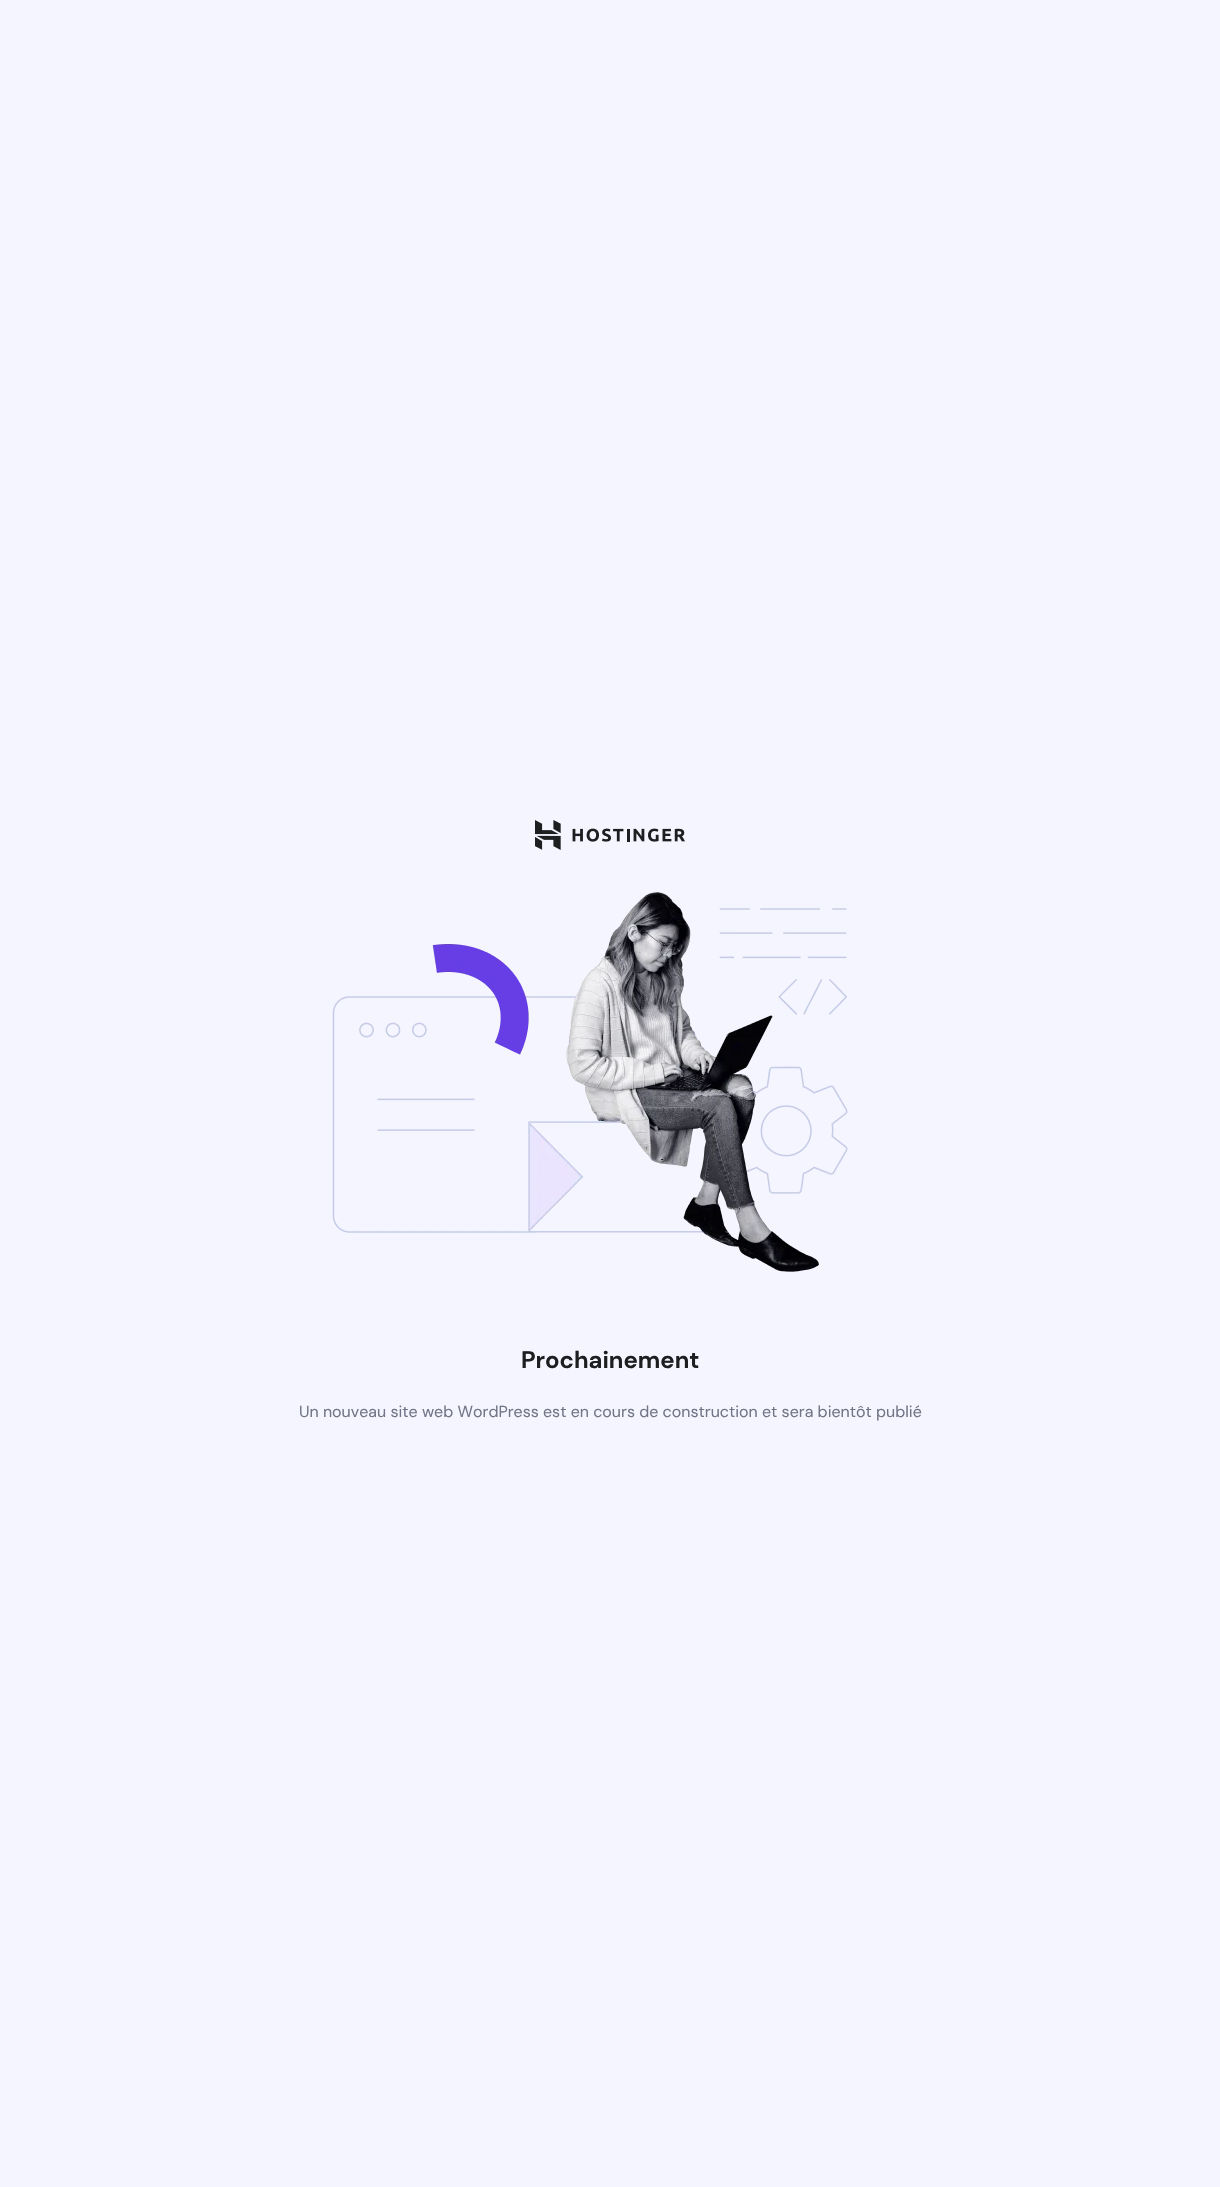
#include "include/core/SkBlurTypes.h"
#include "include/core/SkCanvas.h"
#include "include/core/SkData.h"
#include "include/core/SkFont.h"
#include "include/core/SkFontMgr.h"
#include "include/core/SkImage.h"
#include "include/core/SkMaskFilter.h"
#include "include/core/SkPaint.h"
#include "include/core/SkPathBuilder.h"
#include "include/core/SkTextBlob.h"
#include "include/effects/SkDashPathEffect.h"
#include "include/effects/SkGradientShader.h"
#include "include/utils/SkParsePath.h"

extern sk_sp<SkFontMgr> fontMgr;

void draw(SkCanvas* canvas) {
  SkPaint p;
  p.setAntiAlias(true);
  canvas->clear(SkColorSetRGB(244, 245, 255));
  canvas->drawImageRect(SkImages::DeferredFromEncodedData(SkData::MakeFromFileName("images/1.png")), SkRect::MakeLTRB(535, 820, 685, 850), SkSamplingOptions());
  canvas->drawImageRect(SkImages::DeferredFromEncodedData(SkData::MakeFromFileName("images/2.png")), SkRect::MakeLTRB(332, 892, 848, 1272), SkSamplingOptions());
  SkFont font1(fontMgr->matchFamilyStyle("DM Sans", SkFontStyle::Bold()), 24);
  font1.setSubpixel(true);
  p.setColor(SkColorSetRGB(29, 30, 32));
  canvas->drawString("Prochainement", 521, 1368, font1, p);
  SkFont font2(fontMgr->matchFamilyStyle("DM Sans", SkFontStyle::Normal()), 16);
  font2.setSubpixel(true);
  p.setColor(SkColorSetRGB(114, 117, 134));
  canvas->drawString("Un nouveau site web WordPress est en cours de construction et sera bientôt publié", 299, 1417, font2, p);
}
